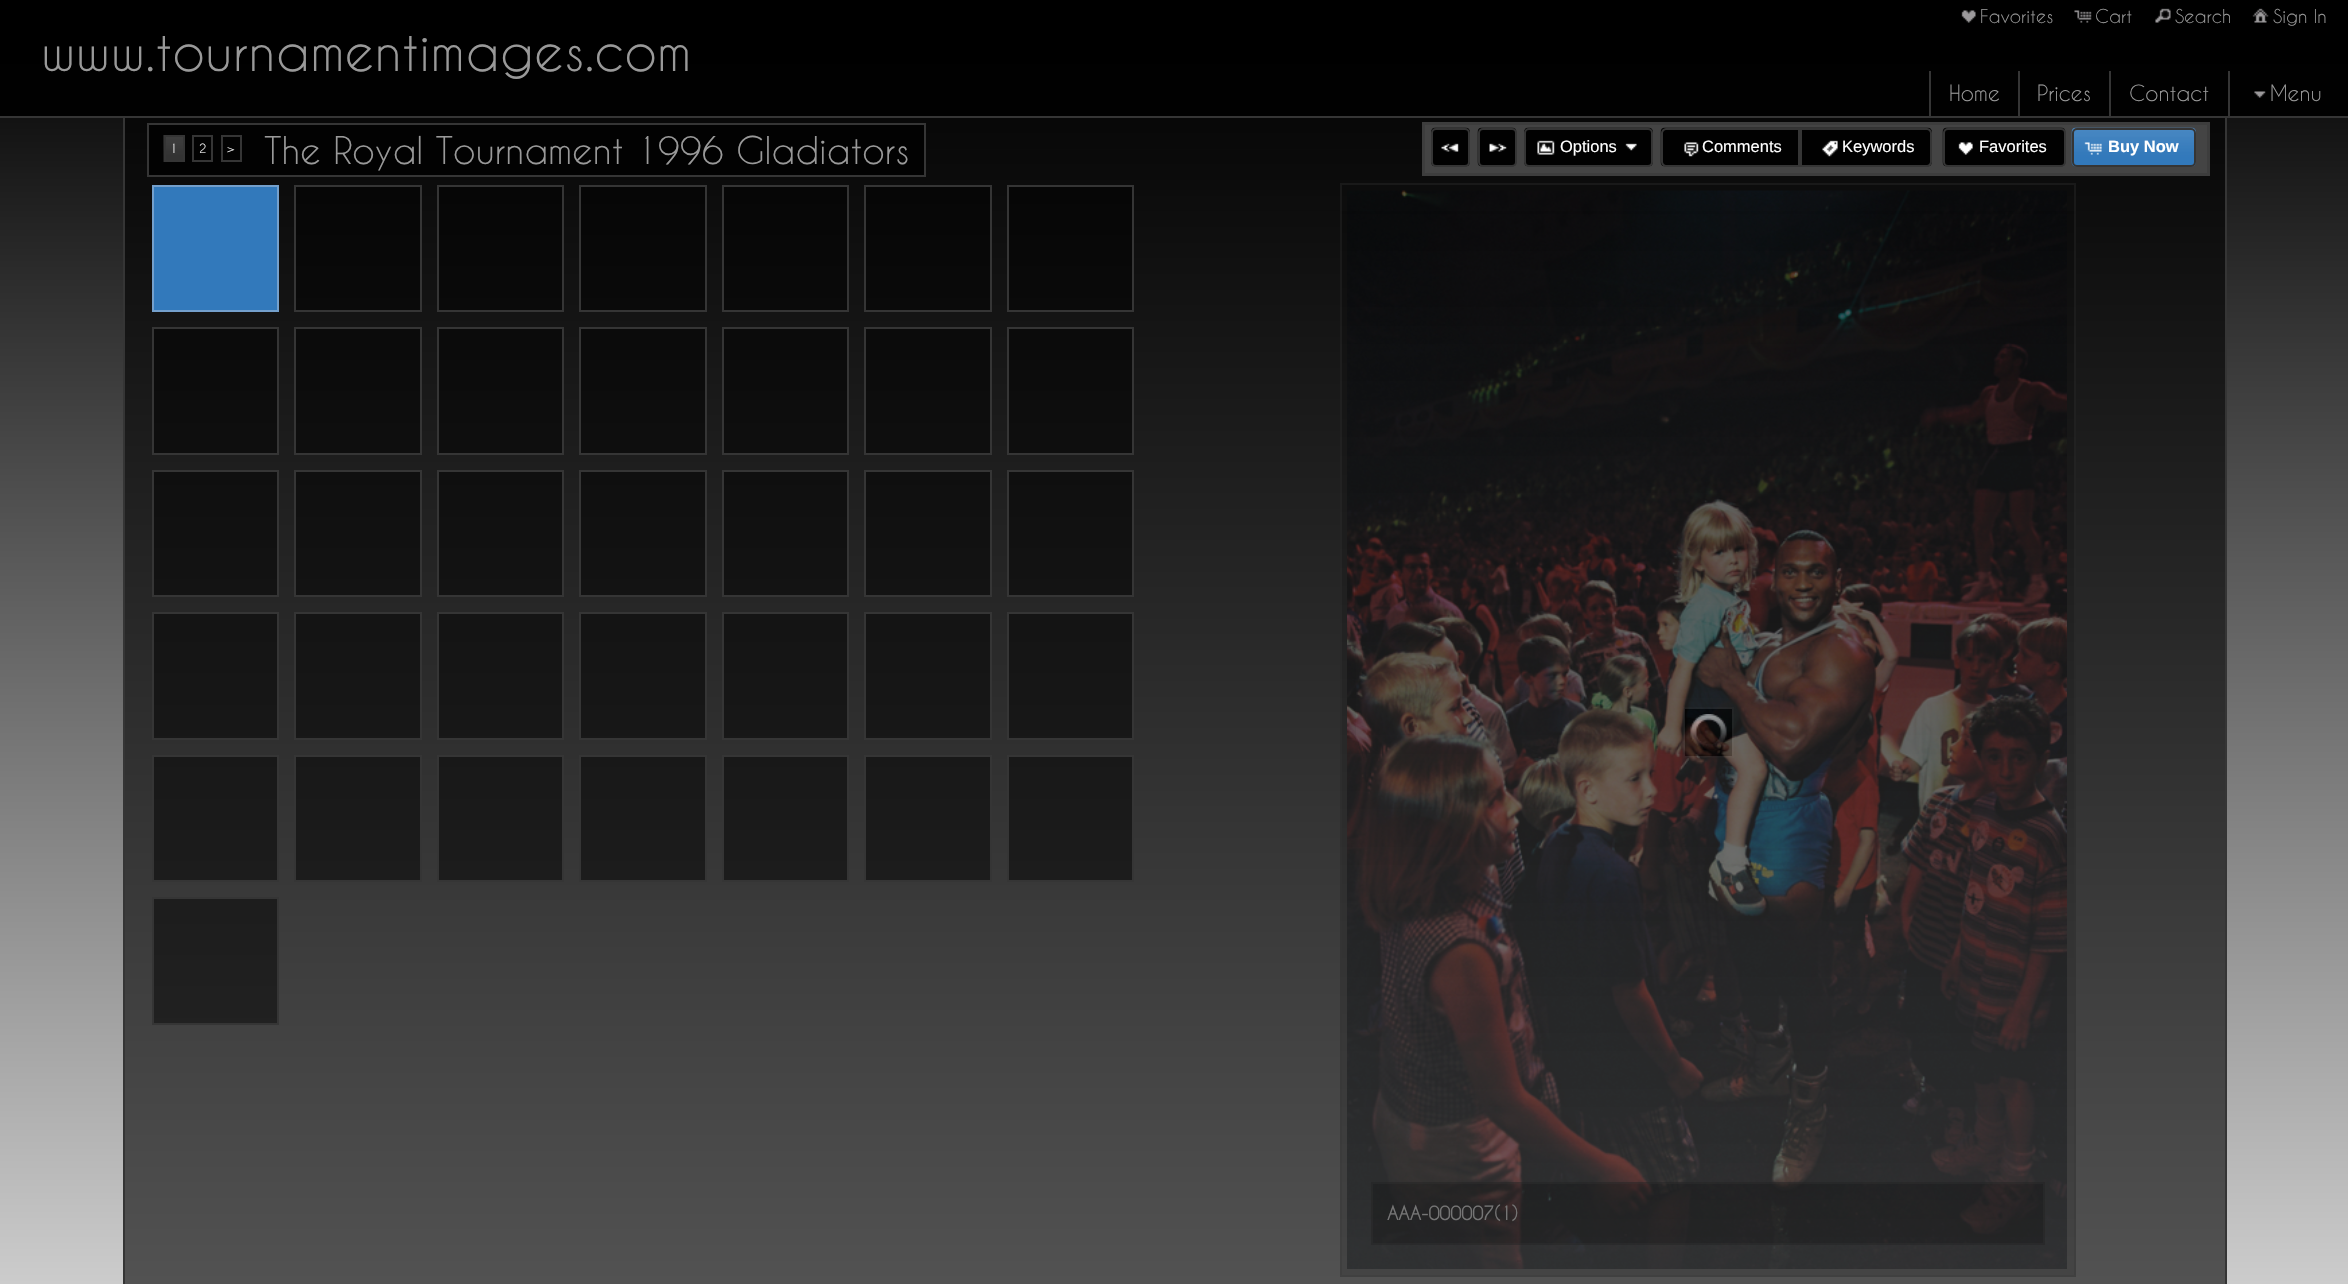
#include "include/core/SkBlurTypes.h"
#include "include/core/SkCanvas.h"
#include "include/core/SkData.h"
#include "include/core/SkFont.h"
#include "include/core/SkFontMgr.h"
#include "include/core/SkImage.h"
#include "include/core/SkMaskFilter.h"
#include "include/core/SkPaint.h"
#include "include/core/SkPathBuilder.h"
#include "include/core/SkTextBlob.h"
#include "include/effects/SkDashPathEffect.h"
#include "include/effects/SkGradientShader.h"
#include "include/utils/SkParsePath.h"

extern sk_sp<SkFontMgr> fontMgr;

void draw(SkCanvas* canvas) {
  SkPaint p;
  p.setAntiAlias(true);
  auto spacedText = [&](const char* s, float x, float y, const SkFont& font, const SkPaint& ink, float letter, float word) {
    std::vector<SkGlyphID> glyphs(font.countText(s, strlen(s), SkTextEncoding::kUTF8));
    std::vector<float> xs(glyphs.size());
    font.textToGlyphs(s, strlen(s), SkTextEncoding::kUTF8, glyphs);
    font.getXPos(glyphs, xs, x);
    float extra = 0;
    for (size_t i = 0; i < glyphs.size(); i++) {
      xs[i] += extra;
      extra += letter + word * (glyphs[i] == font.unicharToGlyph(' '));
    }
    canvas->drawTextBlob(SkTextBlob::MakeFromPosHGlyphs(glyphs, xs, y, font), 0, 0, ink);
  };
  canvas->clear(SK_ColorWHITE);
  {
    const SkColor colors[] = {SK_ColorBLACK, SkColorSetRGB(204, 204, 204)};
    const float stops[] = {0, 1};
    const SkPoint ends[] = {{1175, 0}, {1175, 1284}};
    p.setShader(SkGradientShader::MakeLinear(ends, colors, stops, 2, SkTileMode::kClamp));
    p.setAlpha(255);
  }
  canvas->drawRect(SkRect::MakeLTRB(0, 118, 2348, 1284), p);
  {
    const SkColor colors[] = {SK_ColorBLACK, SkColorSetRGB(10, 10, 10)};
    const float stops[] = {0, 1};
    const SkPoint ends[] = {{1175, 0}, {1175, 1284}};
    p.setShader(SkGradientShader::MakeLinear(ends, colors, stops, 2, SkTileMode::kClamp));
    p.setAlpha(255);
  }
  canvas->drawRect(SkRect::MakeLTRB(0, 0, 2348, 116), p);
  {
    const SkColor colors[] = {SK_ColorBLACK, SkColorSetRGB(82, 82, 82)};
    const float stops[] = {0, 1};
    const SkPoint ends[] = {{1175, 0}, {1175, 1284}};
    p.setShader(SkGradientShader::MakeLinear(ends, colors, stops, 2, SkTileMode::kClamp));
    p.setAlpha(255);
  }
  canvas->drawRect(SkRect::MakeLTRB(125, 118, 2225, 1284), p);
  {
    const SkColor colors[] = {SK_ColorBLACK, SkColorSetRGB(16, 16, 16)};
    const float stops[] = {0, 1};
    const SkPoint ends[] = {{1175, 0}, {1175, 1284}};
    p.setShader(SkGradientShader::MakeLinear(ends, colors, stops, 2, SkTileMode::kClamp));
    p.setAlpha(255);
  }
  canvas->drawRect(SkRect::MakeLTRB(149, 125, 924, 175), p);
  {
    const SkColor colors[] = {SK_ColorBLACK, SkColorSetRGB(41, 41, 41)};
    const float stops[] = {0, 1};
    const SkPoint ends[] = {{1175, 0}, {1175, 1284}};
    p.setShader(SkGradientShader::MakeLinear(ends, colors, stops, 2, SkTileMode::kClamp));
    p.setAlpha(255);
  }
  canvas->drawRect(SkRect::MakeLTRB(154, 899, 277, 1023), p);
  canvas->drawRect(SkRect::MakeLTRB(1009, 757, 1132, 880), p);
  canvas->drawRect(SkRect::MakeLTRB(866, 757, 990, 880), p);
  canvas->drawRect(SkRect::MakeLTRB(724, 757, 847, 880), p);
  canvas->drawRect(SkRect::MakeLTRB(581, 757, 705, 880), p);
  canvas->drawRect(SkRect::MakeLTRB(439, 757, 562, 880), p);
  canvas->drawRect(SkRect::MakeLTRB(296, 757, 420, 880), p);
  canvas->drawRect(SkRect::MakeLTRB(154, 757, 277, 880), p);
  canvas->drawRect(SkRect::MakeLTRB(1009, 614, 1132, 738), p);
  canvas->drawRect(SkRect::MakeLTRB(866, 614, 990, 738), p);
  canvas->drawRect(SkRect::MakeLTRB(724, 614, 847, 738), p);
  canvas->drawRect(SkRect::MakeLTRB(581, 614, 705, 738), p);
  canvas->drawRect(SkRect::MakeLTRB(439, 614, 562, 738), p);
  canvas->drawRect(SkRect::MakeLTRB(296, 614, 420, 738), p);
  canvas->drawRect(SkRect::MakeLTRB(154, 614, 277, 738), p);
  canvas->drawRect(SkRect::MakeLTRB(1009, 472, 1132, 595), p);
  canvas->drawRect(SkRect::MakeLTRB(866, 472, 990, 595), p);
  canvas->drawRect(SkRect::MakeLTRB(724, 472, 847, 595), p);
  canvas->drawRect(SkRect::MakeLTRB(581, 472, 705, 595), p);
  canvas->drawRect(SkRect::MakeLTRB(439, 472, 562, 595), p);
  canvas->drawRect(SkRect::MakeLTRB(296, 472, 420, 595), p);
  canvas->drawRect(SkRect::MakeLTRB(154, 472, 277, 595), p);
  canvas->drawRect(SkRect::MakeLTRB(1009, 329, 1132, 453), p);
  canvas->drawRect(SkRect::MakeLTRB(866, 329, 990, 453), p);
  canvas->drawRect(SkRect::MakeLTRB(724, 329, 847, 453), p);
  canvas->drawRect(SkRect::MakeLTRB(581, 329, 705, 453), p);
  canvas->drawRect(SkRect::MakeLTRB(439, 329, 562, 453), p);
  canvas->drawRect(SkRect::MakeLTRB(296, 329, 420, 453), p);
  canvas->drawRect(SkRect::MakeLTRB(154, 329, 277, 453), p);
  canvas->drawRect(SkRect::MakeLTRB(1009, 187, 1132, 310), p);
  canvas->drawRect(SkRect::MakeLTRB(866, 187, 990, 310), p);
  canvas->drawRect(SkRect::MakeLTRB(724, 187, 847, 310), p);
  canvas->drawRect(SkRect::MakeLTRB(581, 187, 705, 310), p);
  canvas->drawRect(SkRect::MakeLTRB(439, 187, 562, 310), p);
  canvas->drawRect(SkRect::MakeLTRB(296, 187, 420, 310), p);
  {
    const SkColor colors[] = {SK_ColorBLACK, SkColorSetRGB(69, 69, 69)};
    const float stops[] = {0, 1};
    const SkPoint ends[] = {{1175, 0}, {1175, 1284}};
    p.setShader(SkGradientShader::MakeLinear(ends, colors, stops, 2, SkTileMode::kClamp));
    p.setAlpha(255);
  }
  canvas->drawRect(SkRect::MakeLTRB(1340, 211, 2076, 1277), p);
  {
    const SkColor colors[] = {SK_ColorBLACK, SkColorSetRGB(13, 13, 13)};
    const float stops[] = {0, 1};
    const SkPoint ends[] = {{1175, 0}, {1175, 1284}};
    p.setShader(SkGradientShader::MakeLinear(ends, colors, stops, 2, SkTileMode::kClamp));
    p.setAlpha(255);
  }
  canvas->drawRect(SkRect::MakeLTRB(1685, 709, 1732, 756), p);
  p.setShader(nullptr);
  p.setColor(SkColorSetRGB(53, 53, 53));
  canvas->drawRect(SkRect::MakeLTRB(2225, 116, 2227, 1284), p);
  canvas->drawRect(SkRect::MakeLTRB(123, 116, 125, 1284), p);
  canvas->drawRect(SkRect::MakeLTRB(0, 116, 2348, 118), p);
  canvas->drawImageRect(SkImages::DeferredFromEncodedData(SkData::MakeFromFileName("images/1.png")), SkRect::MakeLTRB(1961, 10, 1976, 23), SkSamplingOptions());
  canvas->drawImageRect(SkImages::DeferredFromEncodedData(SkData::MakeFromFileName("images/2.png")), SkRect::MakeLTRB(2074, 10, 2092, 23), SkSamplingOptions());
  canvas->drawImageRect(SkImages::DeferredFromEncodedData(SkData::MakeFromFileName("images/3.png")), SkRect::MakeLTRB(2155, 8, 2171, 23), SkSamplingOptions());
  canvas->drawImageRect(SkImages::DeferredFromEncodedData(SkData::MakeFromFileName("images/4.png")), SkRect::MakeLTRB(2252, 8, 2269, 23), SkSamplingOptions());
  canvas->drawRect(SkRect::MakeLTRB(1929, 71, 1931, 116), p);
  canvas->drawRect(SkRect::MakeLTRB(2018, 71, 2020, 116), p);
  canvas->drawRect(SkRect::MakeLTRB(2109, 71, 2111, 116), p);
  canvas->drawRect(SkRect::MakeLTRB(2228, 71, 2230, 116), p);
  canvas->drawImageRect(SkImages::DeferredFromEncodedData(SkData::MakeFromFileName("images/5.png")), SkRect::MakeLTRB(2254, 91, 2266, 98), SkSamplingOptions());
  p.setStyle(SkPaint::kStroke_Style);
  p.setStrokeWidth(2);
  canvas->drawRect(SkRect::MakeLTRB(148, 124, 925, 176), p);
  canvas->drawImageRect(SkImages::DeferredFromEncodedData(SkData::MakeFromFileName("images/6.png")), SkRect::MakeLTRB(163, 135, 183, 162), SkSamplingOptions());
  canvas->drawRect(SkRect::MakeLTRB(165, 136, 184, 161), p);
  canvas->drawRect(SkRect::MakeLTRB(193, 136, 212, 161), p);
  canvas->drawRect(SkRect::MakeLTRB(222, 136, 241, 161), p);
  p.setStyle(SkPaint::kFill_Style);
  p.setColor(SkColorSetRGB(68, 68, 68));
  canvas->drawRect(SkRect::MakeLTRB(1423.5f, 123.5f, 2208.5f, 174.5f), p);
  p.setStyle(SkPaint::kStroke_Style);
  p.setStrokeWidth(3);
  p.setColor(SkColorSetRGB(61, 61, 61));
  canvas->drawRect(SkRect::MakeLTRB(1423.5f, 123.5f, 2208.5f, 174.5f), p);
  canvas->drawImageRect(SkImages::DeferredFromEncodedData(SkData::MakeFromFileName("images/7.png")), SkRect::MakeLTRB(1431, 127, 1470, 167), SkSamplingOptions());
  p.setStrokeWidth(2);
  p.setColor(SkColorSetRGB(53, 53, 53));
  canvas->drawRoundRect(SkRect::MakeLTRB(1432, 129, 1469, 166), 4, 4, p);
  canvas->drawImageRect(SkImages::DeferredFromEncodedData(SkData::MakeFromFileName("images/8.png")), SkRect::MakeLTRB(1441, 143, 1459, 152), SkSamplingOptions());
  canvas->drawImageRect(SkImages::DeferredFromEncodedData(SkData::MakeFromFileName("images/9.png")), SkRect::MakeLTRB(1477, 127, 1517, 167), SkSamplingOptions());
  canvas->drawRoundRect(SkRect::MakeLTRB(1479, 129, 1516, 166), 4, 4, p);
  canvas->drawImageRect(SkImages::DeferredFromEncodedData(SkData::MakeFromFileName("images/10.png")), SkRect::MakeLTRB(1489, 143, 1507, 152), SkSamplingOptions());
  canvas->drawImageRect(SkImages::DeferredFromEncodedData(SkData::MakeFromFileName("images/11.png")), SkRect::MakeLTRB(1524, 127, 1653, 167), SkSamplingOptions());
  canvas->drawRoundRect(SkRect::MakeLTRB(1525, 129, 1652, 166), 4, 4, p);
  canvas->drawImageRect(SkImages::DeferredFromEncodedData(SkData::MakeFromFileName("images/12.png")), SkRect::MakeLTRB(1537, 140, 1555, 155), SkSamplingOptions());
  canvas->drawImageRect(SkImages::DeferredFromEncodedData(SkData::MakeFromFileName("images/13.png")), SkRect::MakeLTRB(1625, 143, 1637, 151), SkSamplingOptions());
  canvas->drawImageRect(SkImages::DeferredFromEncodedData(SkData::MakeFromFileName("images/14.png")), SkRect::MakeLTRB(1660, 127, 1800, 167), SkSamplingOptions());
  canvas->drawPath(SkPathBuilder().moveTo(1666, 129).lineTo(1799, 129).lineTo(1799, 166).lineTo(1666, 166).cubicTo(1664, 166, 1662, 164, 1662, 162).lineTo(1662, 133).cubicTo(1662, 131, 1664, 129, 1666, 129).close().detach(), p);
  canvas->drawImageRect(SkImages::DeferredFromEncodedData(SkData::MakeFromFileName("images/15.png")), SkRect::MakeLTRB(1684, 142, 1699, 157), SkSamplingOptions());
  canvas->drawImageRect(SkImages::DeferredFromEncodedData(SkData::MakeFromFileName("images/16.png")), SkRect::MakeLTRB(1800, 127, 1932, 167), SkSamplingOptions());
  canvas->drawPath(SkPathBuilder().moveTo(1801, 129).lineTo(1927, 129).cubicTo(1929, 129, 1931, 131, 1931, 133).lineTo(1931, 162).cubicTo(1931, 164, 1929, 166, 1927, 166).lineTo(1801, 166).close().detach(), p);
  canvas->drawImageRect(SkImages::DeferredFromEncodedData(SkData::MakeFromFileName("images/17.png")), SkRect::MakeLTRB(1822, 140, 1838, 157), SkSamplingOptions());
  canvas->drawImageRect(SkImages::DeferredFromEncodedData(SkData::MakeFromFileName("images/18.png")), SkRect::MakeLTRB(1942, 127, 2066, 167), SkSamplingOptions());
  canvas->drawRoundRect(SkRect::MakeLTRB(1944, 129, 2065, 166), 4, 4, p);
  canvas->drawImageRect(SkImages::DeferredFromEncodedData(SkData::MakeFromFileName("images/19.png")), SkRect::MakeLTRB(1958, 142, 1973, 155), SkSamplingOptions());
  canvas->drawImageRect(SkImages::DeferredFromEncodedData(SkData::MakeFromFileName("images/20.png")), SkRect::MakeLTRB(2071, 127, 2196, 167), SkSamplingOptions());
  canvas->drawRoundRect(SkRect::MakeLTRB(2073, 129, 2195, 166), 4, 4, p);
  canvas->drawImageRect(SkImages::DeferredFromEncodedData(SkData::MakeFromFileName("images/21.png")), SkRect::MakeLTRB(2084, 142, 2102, 155), SkSamplingOptions());
  p.setStyle(SkPaint::kFill_Style);
  p.setColor(SkColorSetRGB(50, 121, 187));
  canvas->drawRect(SkRect::MakeLTRB(153, 186, 278, 311), p);
  p.setStyle(SkPaint::kStroke_Style);
  p.setColor(SkColorSetRGB(116, 160, 204));
  canvas->drawRect(SkRect::MakeLTRB(153, 186, 278, 311), p);
  p.setColor(SkColorSetRGB(53, 53, 53));
  canvas->drawRect(SkRect::MakeLTRB(295, 186, 421, 311), p);
  canvas->drawRect(SkRect::MakeLTRB(438, 186, 563, 311), p);
  canvas->drawRect(SkRect::MakeLTRB(580, 186, 706, 311), p);
  canvas->drawRect(SkRect::MakeLTRB(723, 186, 848, 311), p);
  canvas->drawRect(SkRect::MakeLTRB(865, 186, 991, 311), p);
  canvas->drawRect(SkRect::MakeLTRB(1008, 186, 1133, 311), p);
  canvas->drawRect(SkRect::MakeLTRB(153, 328, 278, 454), p);
  canvas->drawRect(SkRect::MakeLTRB(295, 328, 421, 454), p);
  canvas->drawRect(SkRect::MakeLTRB(438, 328, 563, 454), p);
  canvas->drawRect(SkRect::MakeLTRB(580, 328, 706, 454), p);
  canvas->drawRect(SkRect::MakeLTRB(723, 328, 848, 454), p);
  canvas->drawRect(SkRect::MakeLTRB(865, 328, 991, 454), p);
  canvas->drawRect(SkRect::MakeLTRB(1008, 328, 1133, 454), p);
  canvas->drawRect(SkRect::MakeLTRB(153, 471, 278, 596), p);
  canvas->drawRect(SkRect::MakeLTRB(295, 471, 421, 596), p);
  canvas->drawRect(SkRect::MakeLTRB(438, 471, 563, 596), p);
  canvas->drawRect(SkRect::MakeLTRB(580, 471, 706, 596), p);
  canvas->drawRect(SkRect::MakeLTRB(723, 471, 848, 596), p);
  canvas->drawRect(SkRect::MakeLTRB(865, 471, 991, 596), p);
  canvas->drawRect(SkRect::MakeLTRB(1008, 471, 1133, 596), p);
  canvas->drawRect(SkRect::MakeLTRB(153, 613, 278, 739), p);
  canvas->drawRect(SkRect::MakeLTRB(295, 613, 421, 739), p);
  canvas->drawRect(SkRect::MakeLTRB(438, 613, 563, 739), p);
  canvas->drawRect(SkRect::MakeLTRB(580, 613, 706, 739), p);
  canvas->drawRect(SkRect::MakeLTRB(723, 613, 848, 739), p);
  canvas->drawRect(SkRect::MakeLTRB(865, 613, 991, 739), p);
  canvas->drawRect(SkRect::MakeLTRB(1008, 613, 1133, 739), p);
  canvas->drawRect(SkRect::MakeLTRB(153, 756, 278, 881), p);
  canvas->drawRect(SkRect::MakeLTRB(295, 756, 421, 881), p);
  canvas->drawRect(SkRect::MakeLTRB(438, 756, 563, 881), p);
  canvas->drawRect(SkRect::MakeLTRB(580, 756, 706, 881), p);
  canvas->drawRect(SkRect::MakeLTRB(723, 756, 848, 881), p);
  canvas->drawRect(SkRect::MakeLTRB(865, 756, 991, 881), p);
  canvas->drawRect(SkRect::MakeLTRB(1008, 756, 1133, 881), p);
  canvas->drawRect(SkRect::MakeLTRB(153, 898, 278, 1024), p);
  canvas->drawImageRect(SkImages::DeferredFromEncodedData(SkData::MakeFromFileName("images/22.png")), SkRect::MakeLTRB(1690, 714, 1727, 750), SkSamplingOptions());
  p.setColor(SkColorSetRGB(45, 45, 45));
  canvas->drawRect(SkRect::MakeLTRB(1684, 708, 1733, 757), p);
  p.setColor(SkColorSetARGB(79, 53, 53, 53));
  canvas->drawRect(SkRect::MakeLTRB(1341, 184, 2075, 1276), p);
  canvas->drawImageRect(SkImages::DeferredFromEncodedData(SkData::MakeFromFileName("images/23.png")), SkRect::MakeLTRB(1347, 190, 2067, 1269), SkSamplingOptions());
  p.setStyle(SkPaint::kFill_Style);
  p.setColor(SkColorSetARGB(15, 0, 0, 0));
  canvas->drawRect(SkRect::MakeLTRB(1403, 192, 1406, 196), p);
  canvas->drawRect(SkRect::MakeLTRB(1347, 568, 1356, 739), p);
  canvas->drawRect(SkRect::MakeLTRB(2060, 553, 2067, 906), p);
  canvas->drawRect(SkRect::MakeLTRB(1517, 1260, 1521, 1262), p);
  p.setColor(SkColorSetARGB(64, 0, 0, 0));
  canvas->drawRect(SkRect::MakeLTRB(1371, 1182, 2045, 1245), p);
  p.setStyle(SkPaint::kStroke_Style);
  p.setColor(SkColorSetARGB(79, 53, 53, 53));
  canvas->drawRect(SkRect::MakeLTRB(1372, 1183, 2044, 1244), p);
  SkFont font1(fontMgr->matchFamilyStyle("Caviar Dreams", SkFontStyle(300, SkFontStyle::kNormal_Width, SkFontStyle::kUpright_Slant)), 18);
  font1.setSubpixel(true);
  p.setStyle(SkPaint::kFill_Style);
  p.setColor(SkColorSetRGB(153, 153, 153));
  canvas->drawString("Favorites", 1980, 23, font1, p);
  canvas->drawString("Cart", 2095, 23, font1, p);
  canvas->drawString("Search", 2175, 23, font1, p);
  canvas->drawString("Sign In", 2273, 23, font1, p);
  SkFont font2(fontMgr->matchFamilyStyle("Caviar Dreams", SkFontStyle(300, SkFontStyle::kNormal_Width, SkFontStyle::kUpright_Slant)), 51);
  font2.setSubpixel(true);
  spacedText("www.tournamentimages.com", 41, 71, font2, p, 0.6f, 0);
  SkFont font3(fontMgr->matchFamilyStyle("Caviar Dreams", SkFontStyle(300, SkFontStyle::kNormal_Width, SkFontStyle::kUpright_Slant)), 21);
  font3.setSubpixel(true);
  canvas->drawString("Home", 1949, 101, font3, p);
  canvas->drawString("Prices", 2037, 101, font3, p);
  canvas->drawString("Contact", 2129, 101, font3, p);
  canvas->drawString("Menu", 2270, 101, font3, p);
  SkFont font4(fontMgr->matchFamilyStyle("Caviar Dreams", SkFontStyle(300, SkFontStyle::kNormal_Width, SkFontStyle::kUpright_Slant)), 12);
  font4.setSubpixel(true);
  p.setColor(SK_ColorWHITE);
  canvas->drawString("1", 170, 153, font4, p);
  canvas->drawString("2", 199, 153, font4, p);
  canvas->drawString(">", 227, 153, font4, p);
  SkFont font5(fontMgr->matchFamilyStyle("Caviar Dreams", SkFontStyle(300, SkFontStyle::kNormal_Width, SkFontStyle::kUpright_Slant)), 36);
  font5.setSubpixel(true);
  p.setColor(SkColorSetRGB(153, 153, 153));
  canvas->drawString("The Royal Tournament 1996 Gladiators", 264, 164, font5, p);
  SkFont font6(fontMgr->matchFamilyStyle("Liberation Sans", SkFontStyle::Normal()), 16.5f);
  font6.setSubpixel(true);
  p.setColor(SK_ColorWHITE);
  canvas->drawString("Options", 1560, 152, font6, p);
  canvas->drawString("Comments", 1702, 152, font6, p);
  canvas->drawString("Keywords", 1842, 152, font6, p);
  canvas->drawString("Favorites", 1979, 152, font6, p);
  SkFont font7(fontMgr->matchFamilyStyle("Liberation Sans", SkFontStyle::Bold()), 16.5f);
  font7.setSubpixel(true);
  canvas->drawString("Buy Now", 2108, 152, font7, p);
  SkFont font8(fontMgr->matchFamilyStyle("Caviar Dreams", SkFontStyle::Bold()), 18);
  font8.setSubpixel(true);
  p.setColor(SkColorSetRGB(117, 117, 117));
  canvas->drawString("AAA-000007(1)", 1387, 1220, font8, p);
}
